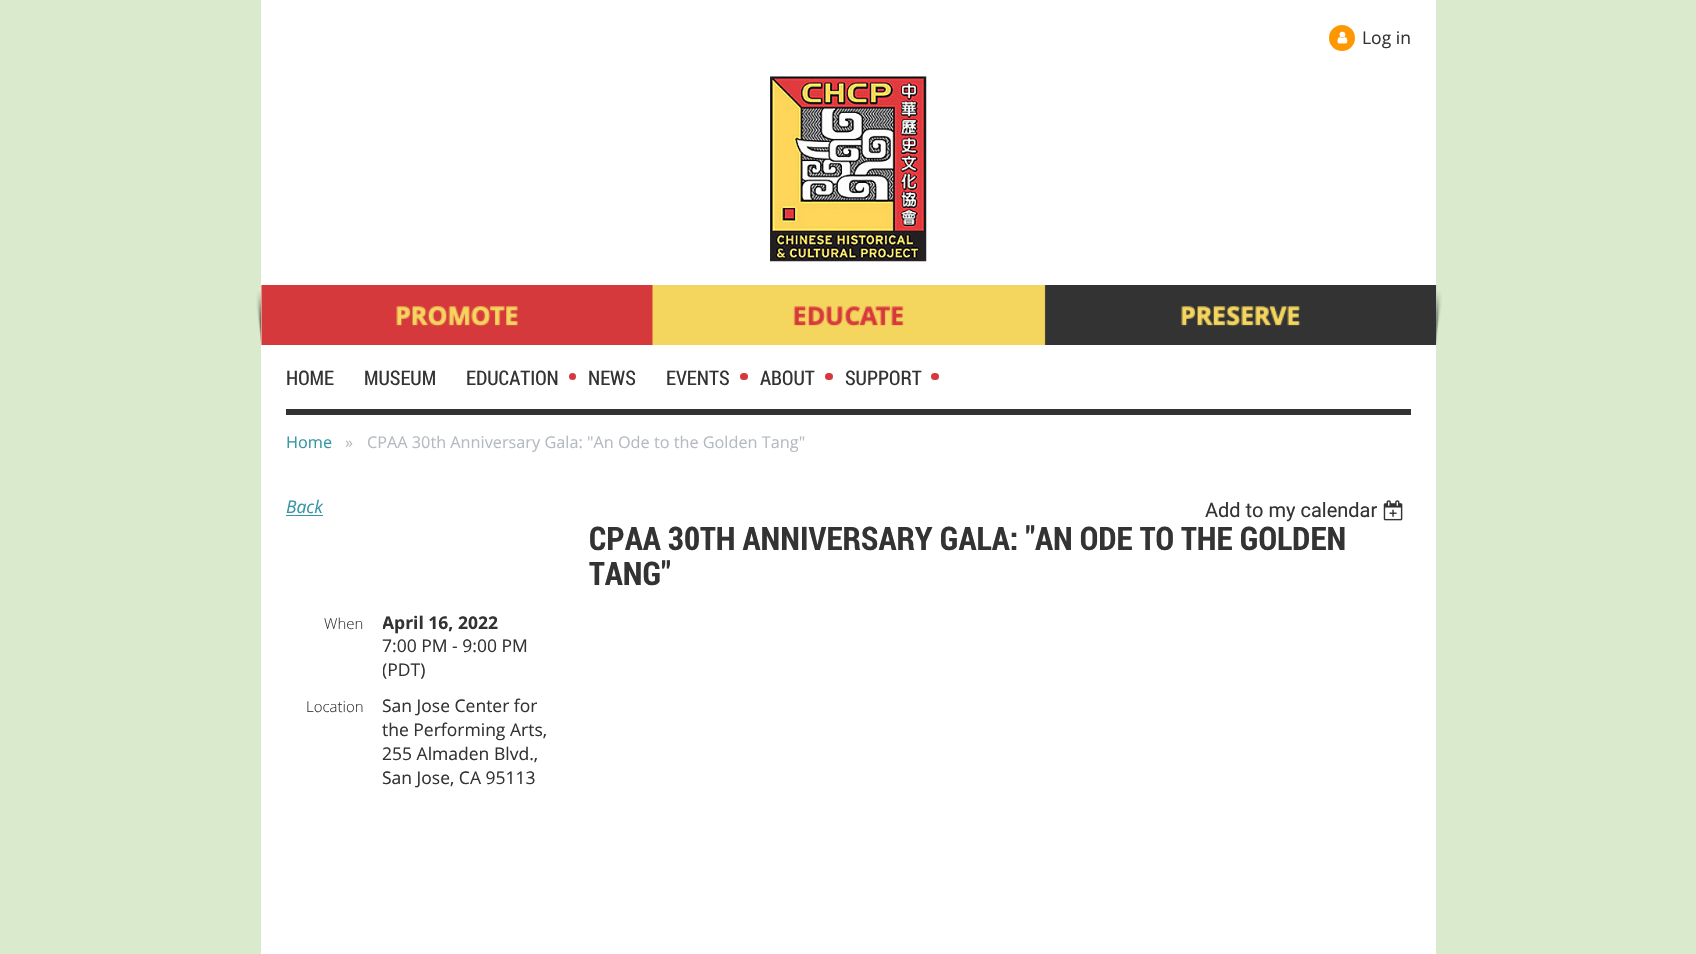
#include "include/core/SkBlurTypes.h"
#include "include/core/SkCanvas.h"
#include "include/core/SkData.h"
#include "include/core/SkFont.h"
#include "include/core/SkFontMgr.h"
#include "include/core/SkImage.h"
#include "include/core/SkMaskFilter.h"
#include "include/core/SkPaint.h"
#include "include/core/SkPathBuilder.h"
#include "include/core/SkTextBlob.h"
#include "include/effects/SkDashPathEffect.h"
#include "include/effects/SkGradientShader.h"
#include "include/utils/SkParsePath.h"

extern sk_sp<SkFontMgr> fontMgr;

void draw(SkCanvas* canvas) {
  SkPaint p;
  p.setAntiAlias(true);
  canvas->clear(SkColorSetRGB(217, 235, 204));
  p.setColor(SK_ColorWHITE);
  canvas->drawRect(SkRect::MakeLTRB(261, 0, 1436, 285), p);
  p.setColor(SkColorSetRGB(254, 151, 1));
  canvas->drawCircle(1342, 38, 11.5f, p);
  p.setStyle(SkPaint::kStroke_Style);
  p.setStrokeWidth(3);
  canvas->drawCircle(1342, 38, 11.5f, p);
  canvas->drawImageRect(SkImages::DeferredFromEncodedData(SkData::MakeFromFileName("images/1.png")), SkRect::MakeLTRB(1337, 31, 1348, 44), SkSamplingOptions());
  canvas->drawImageRect(SkImages::DeferredFromEncodedData(SkData::MakeFromFileName("images/2.png")), SkRect::MakeLTRB(770, 76, 927, 262), SkSamplingOptions());
  canvas->drawImageRect(SkImages::DeferredFromEncodedData(SkData::MakeFromFileName("images/3.png")), SkRect::MakeLTRB(256, 291, 261, 343), SkSamplingOptions());
  p.setStyle(SkPaint::kFill_Style);
  p.setColor(SK_ColorWHITE);
  canvas->drawRect(SkRect::MakeLTRB(261, 285, 262, 345), p);
  canvas->drawImageRect(SkImages::DeferredFromEncodedData(SkData::MakeFromFileName("images/5.png")), SkRect::MakeLTRB(1436, 291, 1442, 344), SkSamplingOptions());
  canvas->drawImageRect(SkImages::DeferredFromEncodedData(SkData::MakeFromFileName("images/4.png")), SkRect::MakeLTRB(261, 285, 1437, 345), SkSamplingOptions());
  canvas->drawRect(SkRect::MakeLTRB(261, 345, 1436, 954), p);
  p.setColor(SkColorSetRGB(51, 51, 51));
  canvas->drawRect(SkRect::MakeLTRB(286, 409, 1411, 415), p);
  p.setColor(SkColorSetRGB(214, 57, 61));
  canvas->drawCircle(572.5f, 376.5f, 3.5f, p);
  canvas->drawRoundRect(SkRect::MakeLTRB(740, 373, 748, 380), 3.5f, 3.5f, p);
  canvas->drawRoundRect(SkRect::MakeLTRB(825, 373, 833, 380), 3.5f, 3.5f, p);
  canvas->drawRoundRect(SkRect::MakeLTRB(931, 373, 939, 380), 3.5f, 3.5f, p);
  p.setColor(SkColorSetRGB(54, 150, 164));
  canvas->drawRect(SkRect::MakeLTRB(286, 515, 323, 516), p);
  canvas->drawImageRect(SkImages::DeferredFromEncodedData(SkData::MakeFromFileName("images/6.png")), SkRect::MakeLTRB(1383, 500, 1403, 521), SkSamplingOptions());
  SkFont font1(fontMgr->matchFamilyStyle("Open Sans", SkFontStyle::Normal()), 17.5f);
  font1.setSubpixel(true);
  p.setColor(SkColorSetRGB(51, 51, 51));
  canvas->drawString("Log in", 1362, 44, font1, p);
  SkFont font2(fontMgr->matchFamilyStyle("Roboto Condensed", SkFontStyle::Normal()), 20);
  font2.setSubpixel(true);
  canvas->drawString("HOME", 286, 385, font2, p);
  canvas->drawString("MUSEUM", 364, 385, font2, p);
  canvas->drawString("EDUCATION", 466, 385, font2, p);
  canvas->drawString("NEWS", 588, 385, font2, p);
  canvas->drawString("EVENTS", 666, 385, font2, p);
  canvas->drawString("ABOUT", 760, 385, font2, p);
  canvas->drawString("SUPPORT", 845, 385, font2, p);
  SkFont font3(fontMgr->matchFamilyStyle("Open Sans", SkFontStyle::Normal()), 16.25f);
  font3.setSubpixel(true);
  p.setColor(SkColorSetRGB(54, 150, 164));
  canvas->drawString("Home", 286, 448, font3, p);
  p.setColor(SkColorSetRGB(181, 186, 194));
  canvas->drawString("»", 345, 448, font3, p);
  canvas->drawString("CPAA 30th Anniversary Gala: \"An Ode to the Golden Tang\"", 367, 448, font3, p);
  SkFont font4(fontMgr->matchFamilyStyle("Open Sans", SkFontStyle::Italic()), 17.5f);
  font4.setSubpixel(true);
  p.setColor(SkColorSetRGB(54, 150, 164));
  canvas->drawString("Back", 286, 513, font4, p);
  SkFont font5(fontMgr->matchFamilyStyle("Roboto", SkFontStyle::Normal()), 20);
  font5.setSubpixel(true);
  p.setColor(SkColorSetRGB(51, 51, 51));
  canvas->drawString("Add to my calendar", 1205, 517, font5, p);
  SkFont font6(fontMgr->matchFamilyStyle("Roboto Condensed", SkFontStyle::Bold()), 32.5f);
  font6.setSubpixel(true);
  canvas->drawString("CPAA 30TH ANNIVERSARY GALA: \"AN ODE TO THE GOLDEN", 589, 550, font6, p);
  canvas->drawString("TANG\"", 589, 585, font6, p);
  SkFont font7(fontMgr->matchFamilyStyle("Open Sans", SkFontStyle(300, SkFontStyle::kNormal_Width, SkFontStyle::kUpright_Slant)), 15);
  font7.setSubpixel(true);
  canvas->drawString("When", 324, 629, font7, p);
  canvas->save();
  canvas->clipRect(SkRect::MakeLTRB(383, 610, 498, 634));
  SkFont font8(fontMgr->matchFamilyStyle("Open Sans", SkFontStyle::Bold()), 17.5f);
  font8.setSubpixel(true);
  canvas->drawString("April 16, 2022", 382, 629, font8, p);
  canvas->restore();
  canvas->drawString("7:00 PM - 9:00 PM", 382, 652, font1, p);
  canvas->save();
  canvas->clipRect(SkRect::MakeLTRB(383, 634, 553, 681));
  canvas->drawString("(PDT)", 382, 676, font1, p);
  canvas->restore();
  canvas->drawString("Location", 306, 712, font7, p);
  canvas->drawString("San Jose Center for", 382, 712, font1, p);
  canvas->drawString("the Performing Arts,", 382, 736, font1, p);
  canvas->drawString("255 Almaden Blvd.,", 382, 760, font1, p);
  canvas->drawString("San Jose, CA 95113", 382, 784, font1, p);
}
